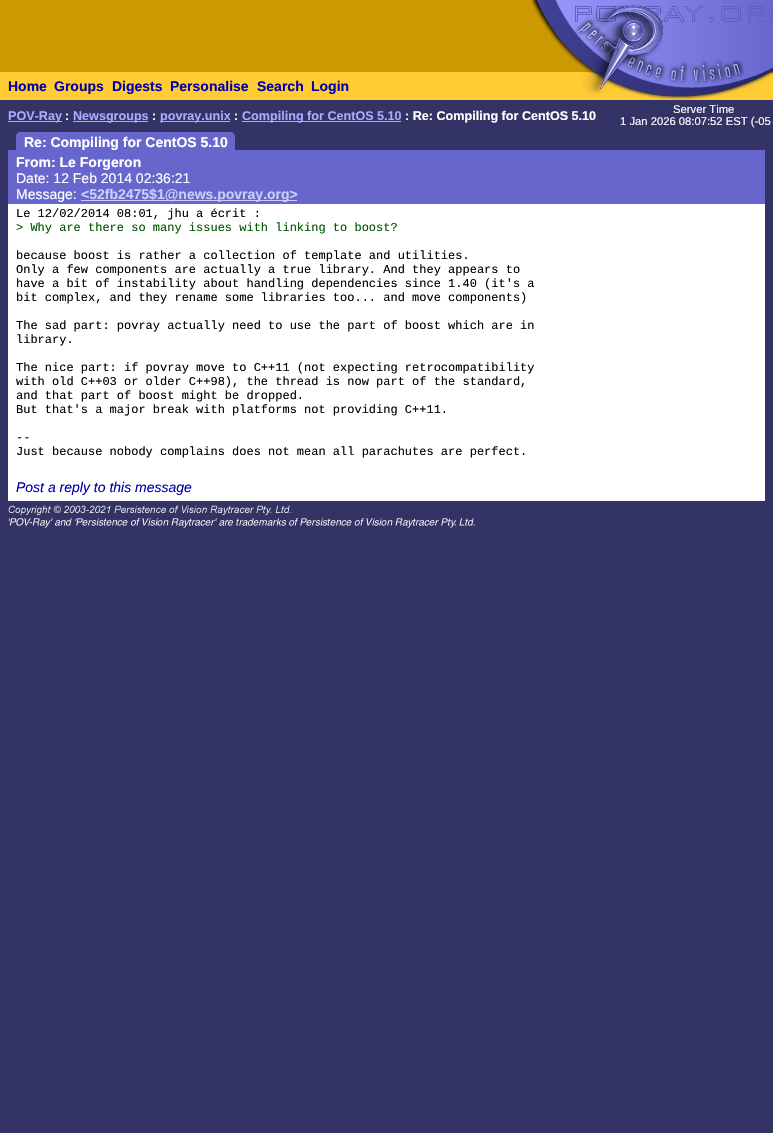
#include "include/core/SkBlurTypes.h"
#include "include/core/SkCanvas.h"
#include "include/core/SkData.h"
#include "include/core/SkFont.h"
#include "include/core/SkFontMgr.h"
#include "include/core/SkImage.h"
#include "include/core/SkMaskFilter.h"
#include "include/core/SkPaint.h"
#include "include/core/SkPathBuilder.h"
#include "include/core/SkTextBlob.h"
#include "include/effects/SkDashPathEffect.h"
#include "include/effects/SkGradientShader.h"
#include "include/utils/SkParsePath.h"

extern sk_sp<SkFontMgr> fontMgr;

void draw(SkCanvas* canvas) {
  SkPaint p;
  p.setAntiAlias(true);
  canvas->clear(SkColorSetRGB(51, 51, 102));
  p.setColor(SkColorSetRGB(204, 153, 0));
  canvas->drawRect(SkRect::MakeLTRB(0, 0, 581, 72), p);
  canvas->drawImageRect(SkImages::DeferredFromEncodedData(SkData::MakeFromFileName("images/1.png")), SkRect::MakeLTRB(528, 0, 581, 68), SkSamplingOptions());
  canvas->drawImageRect(SkImages::DeferredFromEncodedData(SkData::MakeFromFileName("images/2.png")), SkRect::MakeLTRB(581, 0, 621, 72), SkSamplingOptions());
  canvas->drawImageRect(SkImages::DeferredFromEncodedData(SkData::MakeFromFileName("images/3.png")), SkRect::MakeLTRB(621, 0, 773, 72), SkSamplingOptions());
  p.setColor(SkColorSetRGB(255, 204, 51));
  canvas->drawRect(SkRect::MakeLTRB(0, 72, 581, 100), p);
  canvas->drawRect(SkRect::MakeLTRB(581, 98, 621, 100), p);
  canvas->drawImageRect(SkImages::DeferredFromEncodedData(SkData::MakeFromFileName("images/4.png")), SkRect::MakeLTRB(581, 72, 621, 98), SkSamplingOptions());
  canvas->drawImageRect(SkImages::DeferredFromEncodedData(SkData::MakeFromFileName("images/5.png")), SkRect::MakeLTRB(621, 72, 773, 100), SkSamplingOptions());
  p.setColor(SkColorSetRGB(170, 170, 255));
  canvas->drawRect(SkRect::MakeLTRB(8, 121, 62, 122), p);
  canvas->drawRect(SkRect::MakeLTRB(73, 121, 148, 122), p);
  canvas->drawRect(SkRect::MakeLTRB(160, 121, 230, 122), p);
  canvas->drawRect(SkRect::MakeLTRB(242, 121, 401, 122), p);
  p.setColor(SkColorSetRGB(102, 102, 204));
  canvas->drawPath(SkPathBuilder().moveTo(20, 132).lineTo(231, 132).cubicTo(233, 132, 235, 134, 235, 136).lineTo(235, 150).lineTo(16, 150).lineTo(16, 136).cubicTo(16, 134, 18, 132, 20, 132).close().detach(), p);
  canvas->drawRect(SkRect::MakeLTRB(8, 150, 765, 154), p);
  canvas->drawRect(SkRect::MakeLTRB(8, 154, 765, 204), p);
  p.setColor(SkColorSetRGB(204, 204, 255));
  canvas->drawRect(SkRect::MakeLTRB(81, 200, 297, 201), p);
  p.setColor(SK_ColorWHITE);
  canvas->drawRect(SkRect::MakeLTRB(8, 204, 765, 206), p);
  canvas->drawRect(SkRect::MakeLTRB(8, 206, 765, 501), p);
  canvas->drawImageRect(SkImages::DeferredFromEncodedData(SkData::MakeFromFileName("images/6.png")), SkRect::MakeLTRB(8, 505, 475, 528), SkSamplingOptions());
  SkFont font1(fontMgr->matchFamilyStyle("Liberation Sans", SkFontStyle::Bold()), 14);
  font1.setSubpixel(true);
  p.setColor(SkColorSetRGB(0, 0, 170));
  canvas->drawString("Home", 8, 91, font1, p);
  canvas->drawString("Groups", 54, 91, font1, p);
  canvas->drawString("Digests", 112, 91, font1, p);
  canvas->drawString("Personalise", 170, 91, font1, p);
  canvas->drawString("Search", 257, 91, font1, p);
  canvas->drawString("Login", 311, 91, font1, p);
  SkFont font2(fontMgr->matchFamilyStyle("Liberation Sans", SkFontStyle::Bold()), 12.6f);
  font2.setSubpixel(true);
  p.setColor(SkColorSetRGB(170, 170, 255));
  canvas->drawString("POV-Ray", 8, 120, font2, p);
  p.setColor(SK_ColorWHITE);
  canvas->drawString(":", 65, 120, font2, p);
  p.setColor(SkColorSetRGB(170, 170, 255));
  canvas->drawString("Newsgroups", 73, 120, font2, p);
  p.setColor(SK_ColorWHITE);
  canvas->drawString(":", 152, 120, font2, p);
  p.setColor(SkColorSetRGB(170, 170, 255));
  canvas->drawString("povray.unix", 160, 120, font2, p);
  p.setColor(SK_ColorWHITE);
  canvas->drawString(":", 234, 120, font2, p);
  p.setColor(SkColorSetRGB(170, 170, 255));
  canvas->drawString("Compiling for CentOS 5.10", 242, 120, font2, p);
  p.setColor(SK_ColorWHITE);
  canvas->drawString(": Re: Compiling for CentOS 5.10", 405, 120, font2, p);
  SkFont font3(fontMgr->matchFamilyStyle("Liberation Sans", SkFontStyle::Normal()), 11.25f);
  font3.setSubpixel(true);
  canvas->drawString("Server Time", 673, 113, font3, p);
  canvas->drawString("1 Jan 2026 08:07:52 EST (-05", 620, 125, font3, p);
  canvas->drawString("Re: Compiling for CentOS 5.10", 24, 147, font1, p);
  canvas->drawString("From: Le Forgeron", 16, 167, font1, p);
  SkFont font4(fontMgr->matchFamilyStyle("Liberation Sans", SkFontStyle::Normal()), 14);
  font4.setSubpixel(true);
  canvas->drawString("Date: 12 Feb 2014 02:36:21", 16, 183, font4, p);
  canvas->drawString("Message:", 16, 199, font4, p);
  p.setColor(SkColorSetRGB(204, 204, 255));
  canvas->drawString("<52fb2475$1@news.povray.org>", 81, 199, font1, p);
  SkFont font5(fontMgr->matchFamilyStyle("Liberation Mono", SkFontStyle::Normal()), 12);
  font5.setSubpixel(true);
  p.setColor(SK_ColorBLACK);
  canvas->drawString("Le 12/02/2014 08:01, jhu a écrit :", 16, 217, font5, p);
  p.setColor(SkColorSetRGB(0, 85, 0));
  canvas->drawString("> Why are there so many issues with linking to boost?", 16, 231, font5, p);
  p.setColor(SK_ColorBLACK);
  canvas->drawString("because boost is rather a collection of template and utilities.", 16, 259, font5, p);
  canvas->drawString("Only a few components are actually a true library. And they appears to", 16, 273, font5, p);
  canvas->drawString("have a bit of instability about handling dependencies since 1.40 (it's a", 16, 287, font5, p);
  canvas->drawString("bit complex, and they rename some libraries too... and move components)", 16, 301, font5, p);
  canvas->drawString("The sad part: povray actually need to use the part of boost which are in", 16, 329, font5, p);
  canvas->drawString("library.", 16, 343, font5, p);
  canvas->drawString("The nice part: if povray move to C++11 (not expecting retrocompatibility", 16, 371, font5, p);
  canvas->drawString("with old C++03 or older C++98), the thread is now part of the standard,", 16, 385, font5, p);
  canvas->drawString("and that part of boost might be dropped.", 16, 399, font5, p);
  canvas->drawString("But that's a major break with platforms not providing C++11.", 16, 413, font5, p);
  canvas->drawString("--", 16, 441, font5, p);
  canvas->drawString("Just because nobody complains does not mean all parachutes are perfect.", 16, 455, font5, p);
  SkFont font6(fontMgr->matchFamilyStyle("Liberation Sans", SkFontStyle::Italic()), 14);
  font6.setSubpixel(true);
  p.setColor(SkColorSetRGB(0, 0, 170));
  canvas->drawString("Post a reply to this message", 16, 492, font6, p);
}
